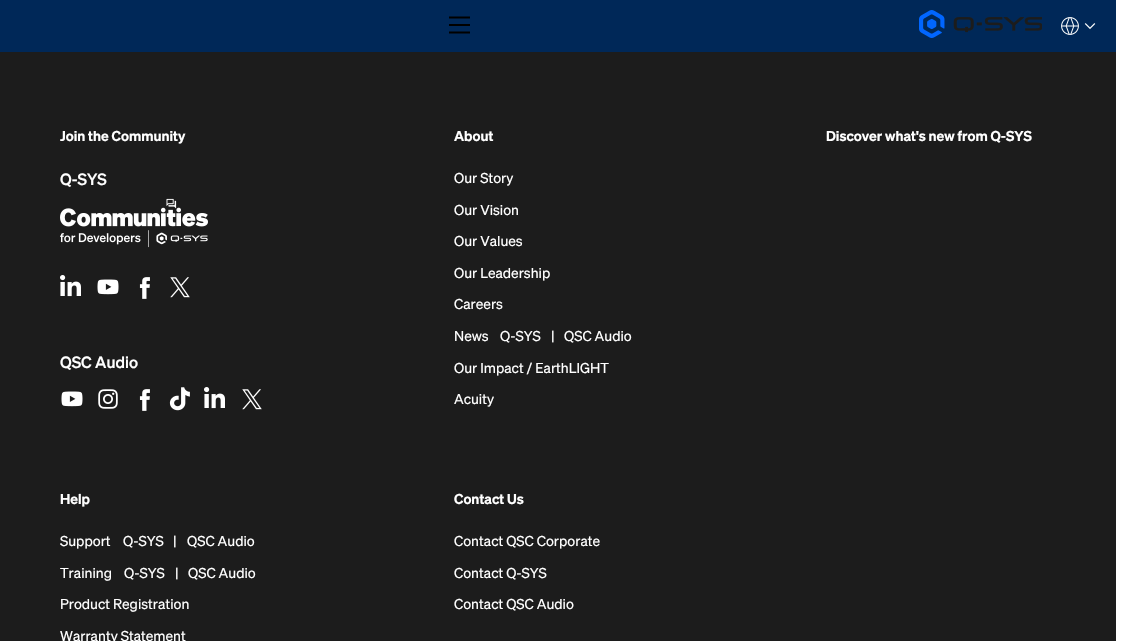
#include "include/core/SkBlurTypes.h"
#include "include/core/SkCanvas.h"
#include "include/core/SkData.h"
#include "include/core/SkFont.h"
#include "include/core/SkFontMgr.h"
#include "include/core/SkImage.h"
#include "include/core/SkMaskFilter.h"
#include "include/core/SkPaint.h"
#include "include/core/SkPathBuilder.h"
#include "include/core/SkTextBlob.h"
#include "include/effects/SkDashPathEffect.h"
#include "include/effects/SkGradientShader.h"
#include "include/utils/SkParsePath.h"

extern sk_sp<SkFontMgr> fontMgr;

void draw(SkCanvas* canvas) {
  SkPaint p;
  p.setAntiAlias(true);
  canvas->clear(SK_ColorWHITE);
  p.setColor(SkColorSetRGB(0, 40, 88));
  canvas->drawRect(SkRect::MakeLTRB(0, 0, 1116, 52), p);
  p.setStyle(SkPaint::kStroke_Style);
  p.setStrokeWidth(2.1f);
  p.setColor(SK_ColorBLACK);
  canvas->drawPath(SkPathBuilder().moveTo(470, 32.5f).lineTo(449, 32.5f).moveTo(449, 17.5f).lineTo(470, 17.5f).detach(), p);
  p.setStyle(SkPaint::kFill_Style);
  canvas->drawRect(SkRect::MakeLTRB(449, 24, 470, 26), p);
  canvas->drawImageRect(SkImages::DeferredFromEncodedData(SkData::MakeFromFileName("images/1.png")), SkRect::MakeLTRB(919, 10, 1042, 38), SkSamplingOptions());
  canvas->drawImageRect(SkImages::DeferredFromEncodedData(SkData::MakeFromFileName("images/2.png")), SkRect::MakeLTRB(1061, 17, 1096, 35), SkSamplingOptions());
  p.setColor(SkColorSetRGB(28, 28, 28));
  canvas->drawRect(SkRect::MakeLTRB(0, 52, 1116, 641), p);
  canvas->drawImageRect(SkImages::DeferredFromEncodedData(SkData::MakeFromFileName("images/3.png")), SkRect::MakeLTRB(60, 198, 208, 248), SkSamplingOptions());
  canvas->drawImageRect(SkImages::DeferredFromEncodedData(SkData::MakeFromFileName("images/4.png")), SkRect::MakeLTRB(60, 275, 81, 297), SkSamplingOptions());
  canvas->drawImageRect(SkImages::DeferredFromEncodedData(SkData::MakeFromFileName("images/5.png")), SkRect::MakeLTRB(97, 279, 119, 295), SkSamplingOptions());
  canvas->drawImageRect(SkImages::DeferredFromEncodedData(SkData::MakeFromFileName("images/6.png")), SkRect::MakeLTRB(139, 277, 150, 299), SkSamplingOptions());
  canvas->drawImageRect(SkImages::DeferredFromEncodedData(SkData::MakeFromFileName("images/7.png")), SkRect::MakeLTRB(170, 277, 190, 298), SkSamplingOptions());
  canvas->drawImageRect(SkImages::DeferredFromEncodedData(SkData::MakeFromFileName("images/5.png")), SkRect::MakeLTRB(61, 391, 83, 407), SkSamplingOptions());
  canvas->drawImageRect(SkImages::DeferredFromEncodedData(SkData::MakeFromFileName("images/8.png")), SkRect::MakeLTRB(98, 389, 118, 409), SkSamplingOptions());
  canvas->drawImageRect(SkImages::DeferredFromEncodedData(SkData::MakeFromFileName("images/6.png")), SkRect::MakeLTRB(139, 389, 150, 411), SkSamplingOptions());
  canvas->drawImageRect(SkImages::DeferredFromEncodedData(SkData::MakeFromFileName("images/9.png")), SkRect::MakeLTRB(169, 387, 190, 411), SkSamplingOptions());
  canvas->drawImageRect(SkImages::DeferredFromEncodedData(SkData::MakeFromFileName("images/4.png")), SkRect::MakeLTRB(204, 387, 225, 409), SkSamplingOptions());
  canvas->drawImageRect(SkImages::DeferredFromEncodedData(SkData::MakeFromFileName("images/7.png")), SkRect::MakeLTRB(242, 389, 262, 410), SkSamplingOptions());
  SkFont font1(fontMgr->matchFamilyStyle("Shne", SkFontStyle(600, SkFontStyle::kNormal_Width, SkFontStyle::kUpright_Slant)), 14);
  font1.setSubpixel(true);
  p.setColor(SK_ColorWHITE);
  canvas->drawString("Join the Community", 60, 141, font1, p);
  SkFont font2(fontMgr->matchFamilyStyle("Shne", SkFontStyle(500, SkFontStyle::kNormal_Width, SkFontStyle::kUpright_Slant)), 16);
  font2.setSubpixel(true);
  canvas->drawString("Q-SYS", 60, 185, font2, p);
  canvas->drawString("QSC Audio", 60, 368, font2, p);
  canvas->drawString("About", 454, 141, font1, p);
  SkFont font3(fontMgr->matchFamilyStyle("Shne", SkFontStyle::Normal()), 14);
  font3.setSubpixel(true);
  canvas->drawString("Our Story", 454, 183, font3, p);
  canvas->drawString("Our Vision", 454, 215, font3, p);
  canvas->drawString("Our Values", 454, 246, font3, p);
  canvas->drawString("Our Leadership", 454, 278, font3, p);
  canvas->drawString("Careers", 454, 309, font3, p);
  canvas->drawString("News", 454, 341, font3, p);
  canvas->drawString("Q-SYS", 500, 341, font3, p);
  canvas->drawString("|", 551, 341, font3, p);
  canvas->drawString("QSC Audio", 564, 341, font3, p);
  canvas->drawString("Our Impact / EarthLIGHT", 454, 373, font3, p);
  canvas->drawString("Acuity", 454, 404, font3, p);
  canvas->drawString("Help", 60, 504, font1, p);
  canvas->drawString("Support", 60, 546, font3, p);
  canvas->drawString("Q-SYS", 123, 546, font3, p);
  canvas->drawString("|", 173, 546, font3, p);
  canvas->drawString("QSC Audio", 187, 546, font3, p);
  canvas->drawString("Training", 60, 578, font3, p);
  canvas->drawString("Q-SYS", 124, 578, font3, p);
  canvas->drawString("|", 175, 578, font3, p);
  canvas->drawString("QSC Audio", 188, 578, font3, p);
  canvas->drawString("Product Registration", 60, 609, font3, p);
  canvas->drawString("Warranty Statement", 60, 641, font3, p);
  canvas->drawString("Contact Us", 454, 504, font1, p);
  canvas->drawString("Contact QSC Corporate", 454, 546, font3, p);
  canvas->drawString("Contact Q-SYS", 454, 578, font3, p);
  canvas->drawString("Contact QSC Audio", 454, 609, font3, p);
  canvas->drawString("Discover what's new from Q-SYS", 826, 141, font1, p);
}
